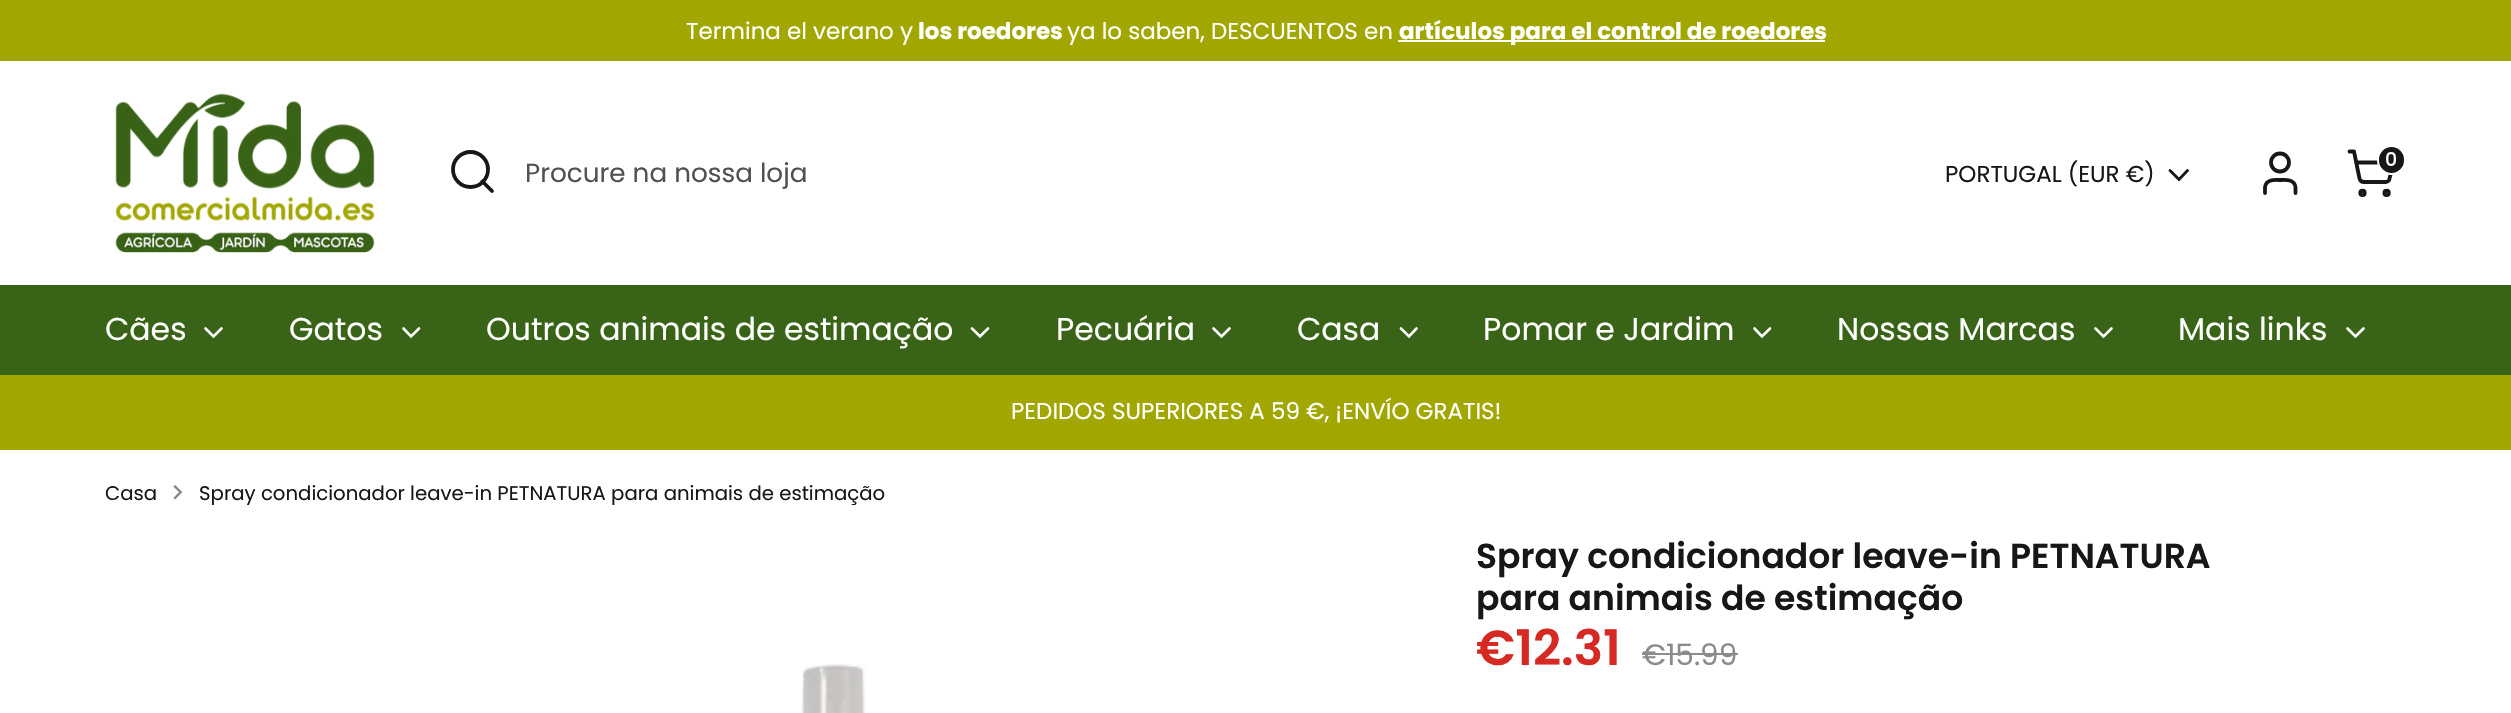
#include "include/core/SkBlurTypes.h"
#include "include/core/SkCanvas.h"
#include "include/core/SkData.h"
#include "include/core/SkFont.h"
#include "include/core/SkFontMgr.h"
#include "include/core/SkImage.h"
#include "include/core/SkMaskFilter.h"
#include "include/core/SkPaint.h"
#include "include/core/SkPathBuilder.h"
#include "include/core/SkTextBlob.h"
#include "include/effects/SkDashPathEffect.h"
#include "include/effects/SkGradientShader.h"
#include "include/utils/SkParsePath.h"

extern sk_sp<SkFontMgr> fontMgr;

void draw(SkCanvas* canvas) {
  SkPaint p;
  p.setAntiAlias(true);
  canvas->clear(SK_ColorWHITE);
  p.setColor(SkColorSetRGB(162, 167, 0));
  canvas->drawRect(SkRect::MakeLTRB(0, 0, 2511, 61), p);
  p.setColor(SK_ColorWHITE);
  canvas->drawRect(SkRect::MakeLTRB(1398, 40, 1825, 42), p);
  canvas->drawImageRect(SkImages::DeferredFromEncodedData(SkData::MakeFromFileName("images/1.png")), SkRect::MakeLTRB(115, 93, 375, 253), SkSamplingOptions());
  p.setStyle(SkPaint::kStroke_Style);
  p.setStrokeWidth(3.8f);
  p.setColor(SkColorSetRGB(23, 23, 22));
  canvas->drawCircle(470.5f, 169.5f, 17.5f, p);
  p.setStrokeCap(SkPaint::kRound_Cap);
  p.setStrokeJoin(SkPaint::kRound_Join);
  canvas->drawPath(SkPathBuilder().moveTo(492, 191).lineTo(482.5f, 181.5f).detach(), p);
  canvas->drawPath(SkPathBuilder().moveTo(2295.5f, 193).lineTo(2295.5f, 187).cubicTo(2294, 179, 2286.5f, 180, 2280, 180).cubicTo(2274, 180, 2266.5f, 179, 2265, 187).lineTo(2265, 193).detach(), p);
  p.setStrokeCap(SkPaint::kButt_Cap);
  p.setStrokeJoin(SkPaint::kMiter_Join);
  canvas->drawCircle(2280, 162.5f, 9, p);
  canvas->drawCircle(2362.5f, 192.9f, 2.2f, p);
  canvas->drawCircle(2386.6f, 192.9f, 2.2f, p);
  p.setStrokeCap(SkPaint::kRound_Cap);
  p.setStrokeJoin(SkPaint::kRound_Join);
  canvas->drawPath(SkPathBuilder().moveTo(2349.5f, 151.5f).lineTo(2354, 151.5f).lineTo(2359.5f, 178.5f).cubicTo(2360, 180.5f, 2362, 182, 2364, 182).lineTo(2385.5f, 182).cubicTo(2387.5f, 182, 2389.5f, 180.5f, 2389.5f, 178.5f).lineTo(2393.5f, 162.5f).lineTo(2356, 162.5f).detach(), p);
  p.setStyle(SkPaint::kFill_Style);
  canvas->drawRoundRect(SkRect::MakeLTRB(2378, 146, 2405, 174), 13.5f, 13.5f, p);
  p.setStyle(SkPaint::kStroke_Style);
  p.setStrokeWidth(2);
  p.setStrokeCap(SkPaint::kButt_Cap);
  p.setStrokeJoin(SkPaint::kMiter_Join);
  p.setColor(SK_ColorWHITE);
  canvas->drawRoundRect(SkRect::MakeLTRB(2378, 146, 2405, 174), 13.5f, 13.5f, p);
  p.setStrokeWidth(2.9f);
  p.setStrokeCap(SkPaint::kRound_Cap);
  p.setColor(SkColorSetRGB(23, 23, 22));
  canvas->drawPath(SkPathBuilder().moveTo(2170, 170.5f).lineTo(2179, 179.5f).lineTo(2187.5f, 170.5f).detach(), p);
  p.setStyle(SkPaint::kFill_Style);
  p.setColor(SkColorSetRGB(57, 99, 22));
  canvas->drawRect(SkRect::MakeLTRB(0, 285, 2511, 375), p);
  p.setStyle(SkPaint::kStroke_Style);
  p.setStrokeWidth(2.6f);
  p.setColor(SK_ColorWHITE);
  canvas->drawPath(SkPathBuilder().moveTo(205.5f, 328.5f).lineTo(213.5f, 336.5f).lineTo(221.5f, 328.5f).detach(), p);
  canvas->drawPath(SkPathBuilder().moveTo(403.5f, 328.5f).lineTo(411, 336.5f).lineTo(419, 328.5f).detach(), p);
  canvas->drawPath(SkPathBuilder().moveTo(972, 328.5f).lineTo(980, 336.5f).lineTo(988, 328.5f).detach(), p);
  canvas->drawPath(SkPathBuilder().moveTo(1213.5f, 328.5f).lineTo(1221.5f, 336.5f).lineTo(1229.5f, 328.5f).detach(), p);
  canvas->drawPath(SkPathBuilder().moveTo(1401, 328.5f).lineTo(1409, 336.5f).lineTo(1416.5f, 328.5f).detach(), p);
  canvas->drawPath(SkPathBuilder().moveTo(1754.5f, 328.5f).lineTo(1762, 336.5f).lineTo(1770, 328.5f).detach(), p);
  canvas->drawPath(SkPathBuilder().moveTo(2095.5f, 328.5f).lineTo(2103.5f, 336.5f).lineTo(2111.5f, 328.5f).detach(), p);
  canvas->drawPath(SkPathBuilder().moveTo(2347.5f, 328.5f).lineTo(2355.5f, 336.5f).lineTo(2363.5f, 328.5f).detach(), p);
  p.setStyle(SkPaint::kFill_Style);
  p.setColor(SkColorSetRGB(162, 167, 0));
  canvas->drawRect(SkRect::MakeLTRB(0, 375, 2511, 450), p);
  canvas->drawImageRect(SkImages::DeferredFromEncodedData(SkData::MakeFromFileName("images/2.png")), SkRect::MakeLTRB(173, 485, 183, 500), SkSamplingOptions());
  p.setColor(SkColorSetRGB(139, 139, 139));
  canvas->drawRect(SkRect::MakeLTRB(1642, 653, 1738, 655), p);
  canvas->drawImageRect(SkImages::DeferredFromEncodedData(SkData::MakeFromFileName("images/3.png")), SkRect::MakeLTRB(801, 664, 866, 713), SkSamplingOptions());
  SkFont font1(fontMgr->matchFamilyStyle("Poppins", SkFontStyle::Normal()), 23);
  font1.setSubpixel(true);
  p.setColor(SK_ColorWHITE);
  canvas->drawString("Termina el verano y", 686, 39, font1, p);
  SkFont font2(fontMgr->matchFamilyStyle("Poppins", SkFontStyle::Bold()), 23);
  font2.setSubpixel(true);
  canvas->drawString("los roedores", 918, 39, font2, p);
  canvas->drawString("ya lo saben, DESCUENTOS en", 1067, 39, font1, p);
  canvas->drawString("artículos para el control de roedores", 1399, 39, font2, p);
  SkFont font3(fontMgr->matchFamilyStyle("Poppins", SkFontStyle::Normal()), 26.25f);
  font3.setSubpixel(true);
  p.setColor(SkColorSetRGB(81, 81, 80));
  canvas->drawString("Procure na nossa loja", 525, 182, font3, p);
  SkFont font4(fontMgr->matchFamilyStyle("Poppins", SkFontStyle(500, SkFontStyle::kNormal_Width, SkFontStyle::kUpright_Slant)), 19);
  font4.setSubpixel(true);
  p.setColor(SK_ColorWHITE);
  canvas->drawString("0", 2385, 166, font4, p);
  p.setColor(SkColorSetRGB(23, 23, 22));
  canvas->drawString("PORTUGAL (EUR €)", 1945, 182, font1, p);
  SkFont font5(fontMgr->matchFamilyStyle("Poppins", SkFontStyle::Normal()), 31.5f);
  font5.setSubpixel(true);
  p.setColor(SK_ColorWHITE);
  canvas->drawString("Cães", 105, 340, font5, p);
  canvas->drawString("Gatos", 289, 340, font5, p);
  canvas->drawString("Outros animais de estimação", 486, 340, font5, p);
  canvas->drawString("Pecuária", 1056, 340, font5, p);
  canvas->drawString("Casa", 1297, 340, font5, p);
  canvas->drawString("Pomar e Jardim", 1483, 340, font5, p);
  canvas->drawString("Nossas Marcas", 1837, 340, font5, p);
  canvas->drawString("Mais links", 2178, 340, font5, p);
  canvas->drawString("PEDIDOS SUPERIORES A 59 €, ¡ENVÍO GRATIS!", 1011, 419, font1, p);
  SkFont font6(fontMgr->matchFamilyStyle("Poppins", SkFontStyle::Normal()), 19.7f);
  font6.setSubpixel(true);
  p.setColor(SkColorSetRGB(23, 23, 22));
  canvas->drawString("Casa", 105, 500, font6, p);
  canvas->drawString("Spray condicionador leave-in PETNATURA para animais de estimação", 199, 500, font6, p);
  SkFont font7(fontMgr->matchFamilyStyle("Poppins", SkFontStyle(600, SkFontStyle::kNormal_Width, SkFontStyle::kUpright_Slant)), 34.6f);
  font7.setSubpixel(true);
  canvas->drawString("Spray condicionador leave-in PETNATURA", 1476, 568, font7, p);
  canvas->drawString("para animais de estimação", 1476, 610, font7, p);
  SkFont font8(fontMgr->matchFamilyStyle("Poppins", SkFontStyle(600, SkFontStyle::kNormal_Width, SkFontStyle::kUpright_Slant)), 49);
  font8.setSubpixel(true);
  p.setColor(SkColorSetRGB(215, 41, 35));
  canvas->drawString("€12.31", 1476, 665, font8, p);
  SkFont font9(fontMgr->matchFamilyStyle("Poppins", SkFontStyle::Normal()), 29.5f);
  font9.setSubpixel(true);
  p.setColor(SkColorSetRGB(139, 139, 139));
  canvas->drawString("€15.99", 1642, 665, font9, p);
}
